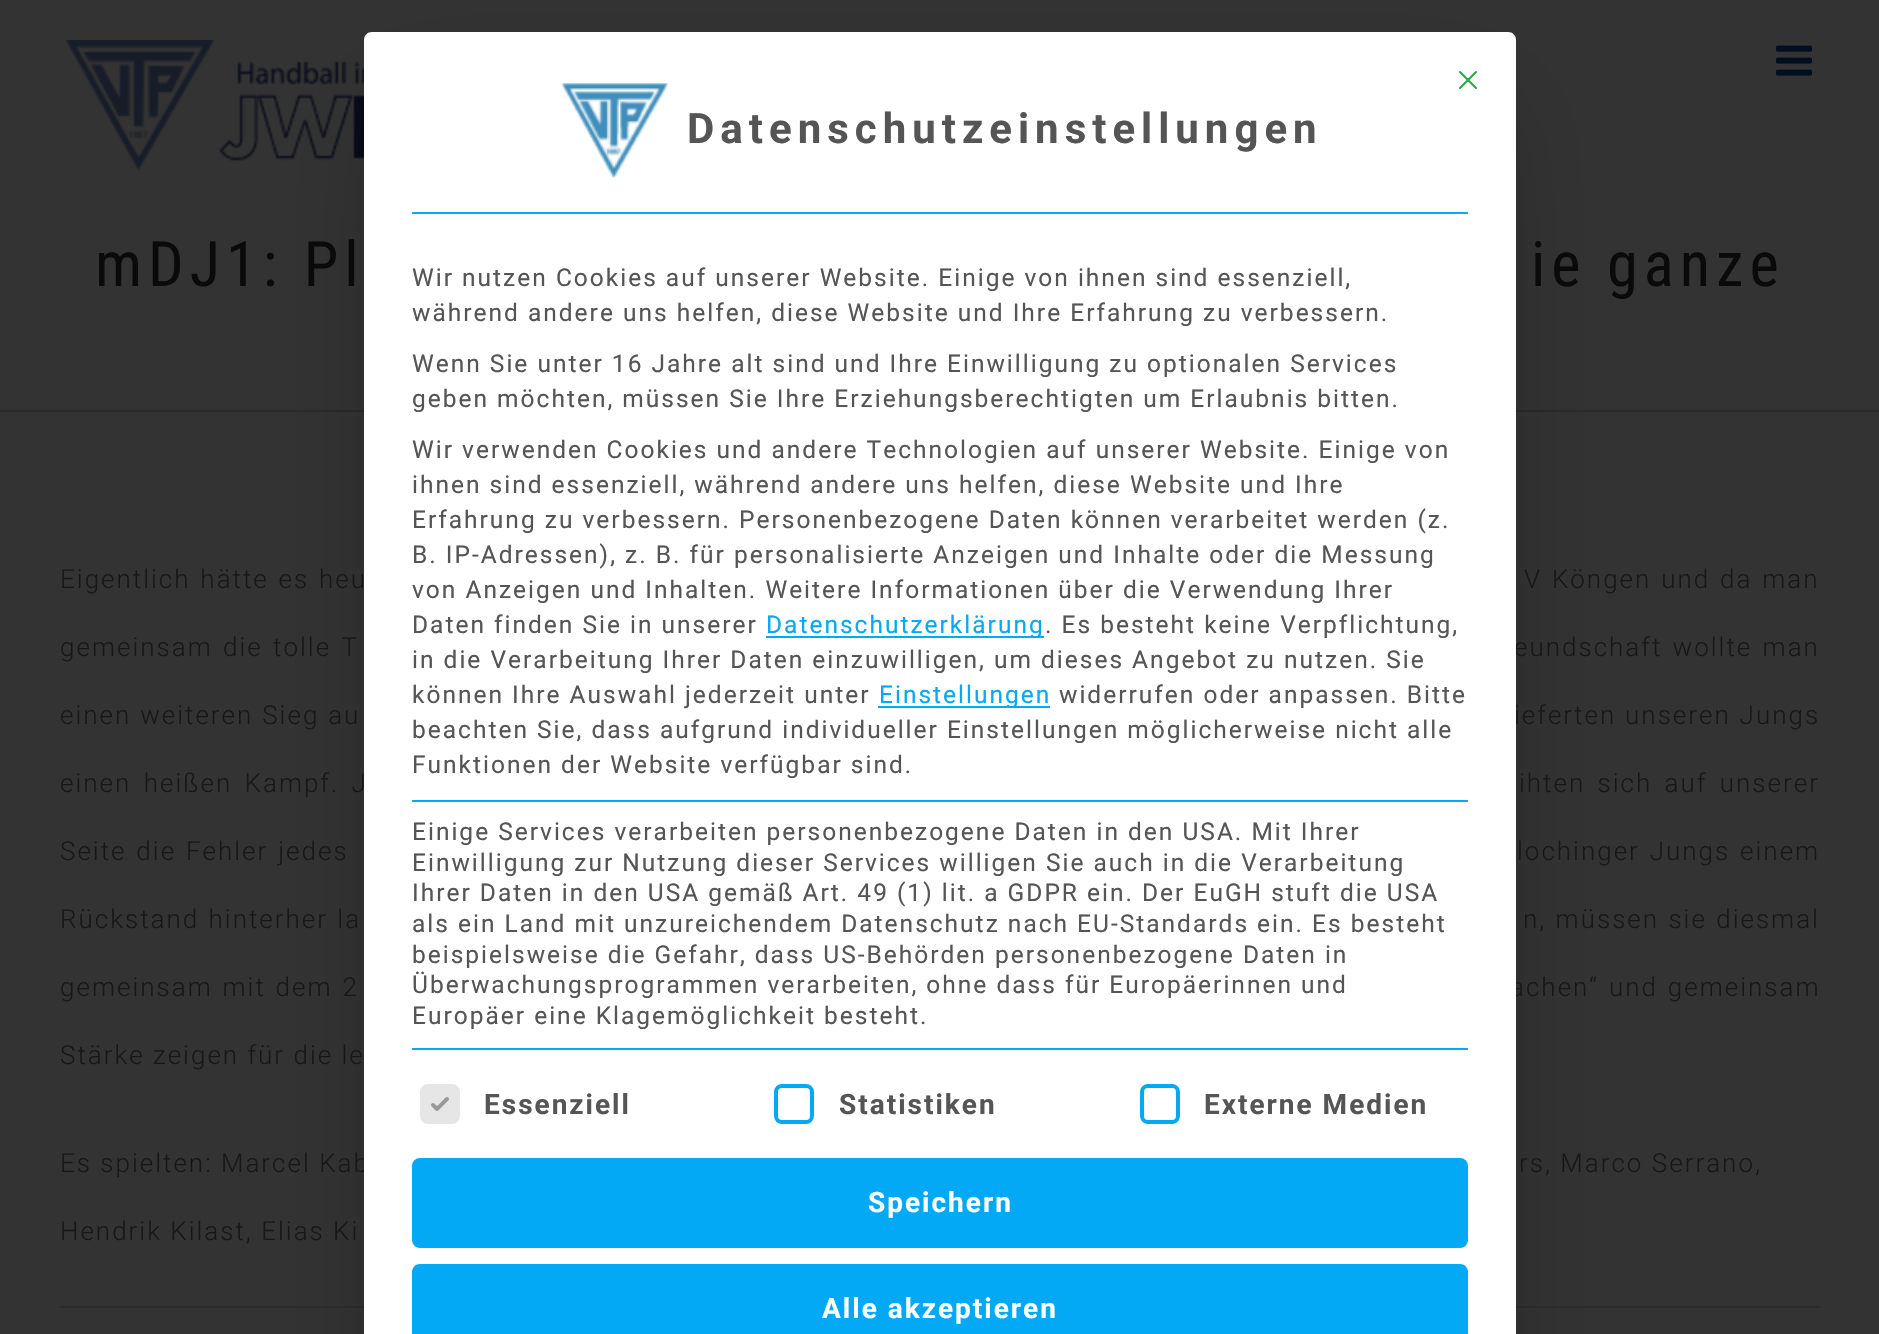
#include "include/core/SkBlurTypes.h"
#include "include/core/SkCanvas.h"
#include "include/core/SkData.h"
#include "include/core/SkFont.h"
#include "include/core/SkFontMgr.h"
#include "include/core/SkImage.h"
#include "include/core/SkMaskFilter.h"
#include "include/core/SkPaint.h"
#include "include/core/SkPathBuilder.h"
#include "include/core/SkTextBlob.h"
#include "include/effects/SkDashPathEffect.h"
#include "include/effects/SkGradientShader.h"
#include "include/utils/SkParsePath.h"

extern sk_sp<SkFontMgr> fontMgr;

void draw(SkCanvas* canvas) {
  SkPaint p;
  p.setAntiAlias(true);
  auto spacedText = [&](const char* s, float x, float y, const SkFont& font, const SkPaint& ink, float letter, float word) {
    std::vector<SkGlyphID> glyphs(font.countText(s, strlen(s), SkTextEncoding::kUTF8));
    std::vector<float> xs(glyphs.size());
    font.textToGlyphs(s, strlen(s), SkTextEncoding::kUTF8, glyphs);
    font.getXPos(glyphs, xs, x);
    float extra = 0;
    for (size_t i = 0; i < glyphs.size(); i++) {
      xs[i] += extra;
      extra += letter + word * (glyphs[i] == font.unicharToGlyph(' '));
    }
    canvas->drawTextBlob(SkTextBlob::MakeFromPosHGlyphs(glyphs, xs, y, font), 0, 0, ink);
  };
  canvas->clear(SkColorSetRGB(51, 51, 51));
  p.setColor(SkColorSetRGB(42, 42, 42));
  canvas->drawRect(SkRect::MakeLTRB(0, 212, 1879, 214), p);
  p.setColor(SkColorSetARGB(235, 51, 51, 51));
  canvas->drawRect(SkRect::MakeLTRB(0, 212, 1879, 214), p);
  canvas->drawImageRect(SkImages::DeferredFromEncodedData(SkData::MakeFromFileName("images/3.png")), SkRect::MakeLTRB(65, 40, 364, 171), SkSamplingOptions());
  p.setColor(SkColorSetRGB(42, 42, 42));
  canvas->drawRect(SkRect::MakeLTRB(0, 410, 1879, 412), p);
  p.setColor(SkColorSetRGB(45, 44, 44));
  canvas->drawRect(SkRect::MakeLTRB(60, 1306, 1820, 1308), p);
  p.setColor(SkColorSetARGB(64, 0, 0, 0));
  p.setMaskFilter(SkMaskFilter::MakeBlur(kNormal_SkBlurStyle, 50));
  canvas->drawRect(SkRect::MakeLTRB(388, 106, 1492, 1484), p);
  p.setMaskFilter(nullptr);
  canvas->drawImageRect(SkImages::DeferredFromEncodedData(SkData::MakeFromFileName("images/4.png")), SkRect::MakeLTRB(1776, 45, 1812, 76), SkSamplingOptions());
  SkFont font1(fontMgr->matchFamilyStyle("Roboto Condensed", SkFontStyle::Normal()), 62.5f);
  font1.setSubpixel(true);
  p.setColor(SkColorSetRGB(10, 10, 10));
  spacedText("mDJ1: Pl", 95, 286, font1, p, 6, 0);
  spacedText("ie ganze", 1531, 286, font1, p, 6, 0);
  SkFont font2(fontMgr->matchFamilyStyle("Roboto", SkFontStyle(300, SkFontStyle::kNormal_Width, SkFontStyle::kUpright_Slant)), 26);
  font2.setSubpixel(true);
  p.setColor(SkColorSetRGB(23, 23, 23));
  spacedText("Eigentlich hätte es heu", 60, 588, font2, p, 2, 1.5f);
  spacedText("V Köngen und da man", 1524, 588, font2, p, 2, 1.5f);
  spacedText("gemeinsam die tolle T", 60, 656, font2, p, 2, 2);
  spacedText("eundschaft wollte man", 1514, 656, font2, p, 2, 2);
  spacedText("einen weiteren Sieg au", 60, 724, font2, p, 2, 0.5f);
  spacedText("ieferten unseren Jungs", 1514, 724, font2, p, 2, 0.5f);
  spacedText("einen heißen Kampf. J", 60, 792, font2, p, 2, 4);
  spacedText("ihten sich auf unserer", 1519, 792, font2, p, 2, 4);
  spacedText("Seite die Fehler jedes", 60, 860, font2, p, 2, 1.5f);
  spacedText("lochinger Jungs einem", 1517, 860, font2, p, 2, 1.5f);
  spacedText("Rückstand hinterher la", 60, 928, font2, p, 2, 1);
  spacedText("n, müssen sie diesmal", 1523, 928, font2, p, 2, 1);
  spacedText("gemeinsam mit dem 2", 60, 996, font2, p, 2, 1.5f);
  spacedText("achen“ und gemeinsam", 1510, 996, font2, p, 2, 1.5f);
  spacedText("Stärke zeigen für die le", 60, 1064, font2, p, 2, 0);
  spacedText("Es spielten: Marcel Kab", 60, 1172, font2, p, 2, 0);
  p.setColor(SK_ColorWHITE);
  canvas->drawPath(SkPathBuilder().moveTo(372, 32).lineTo(1508, 32).cubicTo(1512.5f, 32, 1516, 35.5f, 1516, 40).lineTo(1516, 1334).lineTo(364, 1334).lineTo(364, 40).cubicTo(364, 35.5f, 367.5f, 32, 372, 32).close().detach(), p);
  p.setStyle(SkPaint::kStroke_Style);
  p.setStrokeWidth(2);
  p.setStrokeCap(SkPaint::kRound_Cap);
  p.setStrokeJoin(SkPaint::kRound_Join);
  p.setColor(SkColorSetRGB(40, 167, 69));
  canvas->drawPath(SkPathBuilder().moveTo(1460, 88).lineTo(1476, 72).moveTo(1460, 72).lineTo(1476, 88).detach(), p);
  SkFont font3(fontMgr->matchFamilyStyle("Roboto", SkFontStyle::Bold()), 28);
  font3.setSubpixel(true);
  p.setStyle(SkPaint::kFill_Style);
  p.setColor(SkColorSetRGB(85, 85, 85));
  spacedText("Externe Medien", 1204, 1114, font3, p, 2, 0);
  p.setStyle(SkPaint::kStroke_Style);
  p.setStrokeWidth(4);
  p.setStrokeCap(SkPaint::kButt_Cap);
  p.setStrokeJoin(SkPaint::kMiter_Join);
  p.setColor(SkColorSetRGB(3, 169, 244));
  canvas->drawRoundRect(SkRect::MakeLTRB(1142, 1086, 1178, 1122), 6, 6, p);
  p.setStyle(SkPaint::kFill_Style);
  p.setColor(SkColorSetRGB(85, 85, 85));
  spacedText("Statistiken", 839, 1114, font3, p, 2, 0);
  p.setStyle(SkPaint::kStroke_Style);
  p.setColor(SkColorSetRGB(3, 169, 244));
  canvas->drawRoundRect(SkRect::MakeLTRB(776, 1086, 812, 1122), 6, 6, p);
  p.setStyle(SkPaint::kFill_Style);
  p.setColor(SkColorSetRGB(230, 230, 230));
  canvas->drawRoundRect(SkRect::MakeLTRB(422, 1086, 458, 1122), 6, 6, p);
  p.setStyle(SkPaint::kStroke_Style);
  canvas->drawRoundRect(SkRect::MakeLTRB(422, 1086, 458, 1122), 6, 6, p);
  canvas->drawImageRect(SkImages::DeferredFromEncodedData(SkData::MakeFromFileName("images/2.png")), SkRect::MakeLTRB(431, 1097, 449, 1111), SkSamplingOptions());
  p.setStyle(SkPaint::kFill_Style);
  p.setColor(SkColorSetRGB(85, 85, 85));
  spacedText("Essenziell", 484, 1114, font3, p, 2, 0);
  p.setColor(SkColorSetRGB(3, 169, 244));
  canvas->drawPath(SkPathBuilder().moveTo(420, 1264).lineTo(1460, 1264).cubicTo(1464.5f, 1264, 1468, 1267.5f, 1468, 1272).lineTo(1468, 1334).lineTo(412, 1334).lineTo(412, 1272).cubicTo(412, 1267.5f, 415.5f, 1264, 420, 1264).close().detach(), p);
  p.setColor(SK_ColorWHITE);
  spacedText("Alle akzeptieren", 822, 1318, font3, p, 2, 0);
  p.setColor(SkColorSetRGB(3, 169, 244));
  canvas->drawRoundRect(SkRect::MakeLTRB(412, 1158, 1468, 1248), 8, 8, p);
  p.setColor(SK_ColorWHITE);
  spacedText("Speichern", 868, 1212, font3, p, 2, 0);
  SkFont font4(fontMgr->matchFamilyStyle("Roboto", SkFontStyle::Normal()), 24.5f);
  font4.setSubpixel(true);
  p.setColor(SkColorSetRGB(85, 85, 85));
  spacedText("Europäer eine Klagemöglichkeit besteht.", 412, 1024, font4, p, 2, 0);
  spacedText("Überwachungsprogrammen verarbeiten, ohne dass für Europäerinnen und", 412, 993, font4, p, 2, 0);
  spacedText("beispielsweise die Gefahr, dass US-Behörden personenbezogene Daten in", 412, 963, font4, p, 2, 0);
  spacedText("als ein Land mit unzureichendem Datenschutz nach EU-Standards ein. Es besteht", 412, 932, font4, p, 2, 0);
  spacedText("Ihrer Daten in den USA gemäß Art. 49 (1) lit. a GDPR ein. Der EuGH stuft die USA", 412, 901, font4, p, 2, 0);
  spacedText("Einwilligung zur Nutzung dieser Services willigen Sie auch in die Verarbeitung", 412, 871, font4, p, 2, 0);
  spacedText("Einige Services verarbeiten personenbezogene Daten in den USA. Mit Ihrer", 412, 840, font4, p, 2, 0);
  spacedText("Funktionen der Website verfügbar sind.", 412, 773, font4, p, 2, 0);
  spacedText("beachten Sie, dass aufgrund individueller Einstellungen möglicherweise nicht alle", 412, 738, font4, p, 2, 0);
  spacedText("widerrufen oder anpassen. Bitte", 1059, 703, font4, p, 2, 0);
  p.setColor(SkColorSetRGB(3, 169, 244));
  canvas->drawRect(SkRect::MakeLTRB(878, 706, 1050, 708), p);
  spacedText("Einstellungen", 879, 703, font4, p, 2, 0);
  p.setColor(SkColorSetRGB(85, 85, 85));
  spacedText("können Ihre Auswahl jederzeit unter", 412, 703, font4, p, 2, 0);
  spacedText("in die Verarbeitung Ihrer Daten einzuwilligen, um dieses Angebot zu nutzen. Sie", 412, 668, font4, p, 2, 0);
  spacedText(". Es besteht keine Verpflichtung,", 1045, 633, font4, p, 2, 0);
  p.setColor(SkColorSetRGB(3, 169, 244));
  canvas->drawRect(SkRect::MakeLTRB(766, 636, 1044, 638), p);
  spacedText("Datenschutzerklärung", 766, 633, font4, p, 2, 0);
  p.setColor(SkColorSetRGB(85, 85, 85));
  spacedText("Daten finden Sie in unserer", 412, 633, font4, p, 2, 0);
  spacedText("von Anzeigen und Inhalten. Weitere Informationen über die Verwendung Ihrer", 412, 598, font4, p, 2, 0);
  spacedText("B. IP-Adressen), z. B. für personalisierte Anzeigen und Inhalte oder die Messung", 412, 563, font4, p, 2, 0);
  spacedText("Erfahrung zu verbessern. Personenbezogene Daten können verarbeitet werden (z.", 412, 528, font4, p, 2, 0);
  spacedText("ihnen sind essenziell, während andere uns helfen, diese Website und Ihre", 412, 493, font4, p, 2, 0);
  spacedText("Wir verwenden Cookies und andere Technologien auf unserer Website. Einige von", 412, 458, font4, p, 2, 0);
  spacedText("geben möchten, müssen Sie Ihre Erziehungsberechtigten um Erlaubnis bitten.", 412, 407, font4, p, 2, 0);
  spacedText("Wenn Sie unter 16 Jahre alt sind und Ihre Einwilligung zu optionalen Services", 412, 372, font4, p, 2, 0);
  spacedText("während andere uns helfen, diese Website und Ihre Erfahrung zu verbessern.", 412, 321, font4, p, 2, 0);
  spacedText("Wir nutzen Cookies auf unserer Website. Einige von ihnen sind essenziell,", 412, 286, font4, p, 2, 0);
  p.setColor(SkColorSetRGB(3, 169, 244));
  canvas->drawRect(SkRect::MakeLTRB(412, 1048, 1468, 1050), p);
  canvas->drawRect(SkRect::MakeLTRB(412, 800, 1468, 802), p);
  SkFont font5(fontMgr->matchFamilyStyle("Roboto", SkFontStyle::Bold()), 42);
  font5.setSubpixel(true);
  p.setColor(SkColorSetRGB(85, 85, 85));
  spacedText("Datenschutzeinstellungen", 687, 143, font5, p, 6, 0);
  canvas->drawImageRect(SkImages::DeferredFromEncodedData(SkData::MakeFromFileName("images/1.png")), SkRect::MakeLTRB(561, 83, 669, 179), SkSamplingOptions());
  p.setColor(SkColorSetRGB(3, 169, 244));
  canvas->drawRect(SkRect::MakeLTRB(412, 212, 1468, 214), p);
  p.setColor(SkColorSetRGB(23, 23, 23));
  spacedText("rs, Marco Serrano,", 1519, 1172, font2, p, 2, 0);
  spacedText("Hendrik Kilast, Elias Ki", 60, 1240, font2, p, 2, 0);
}
